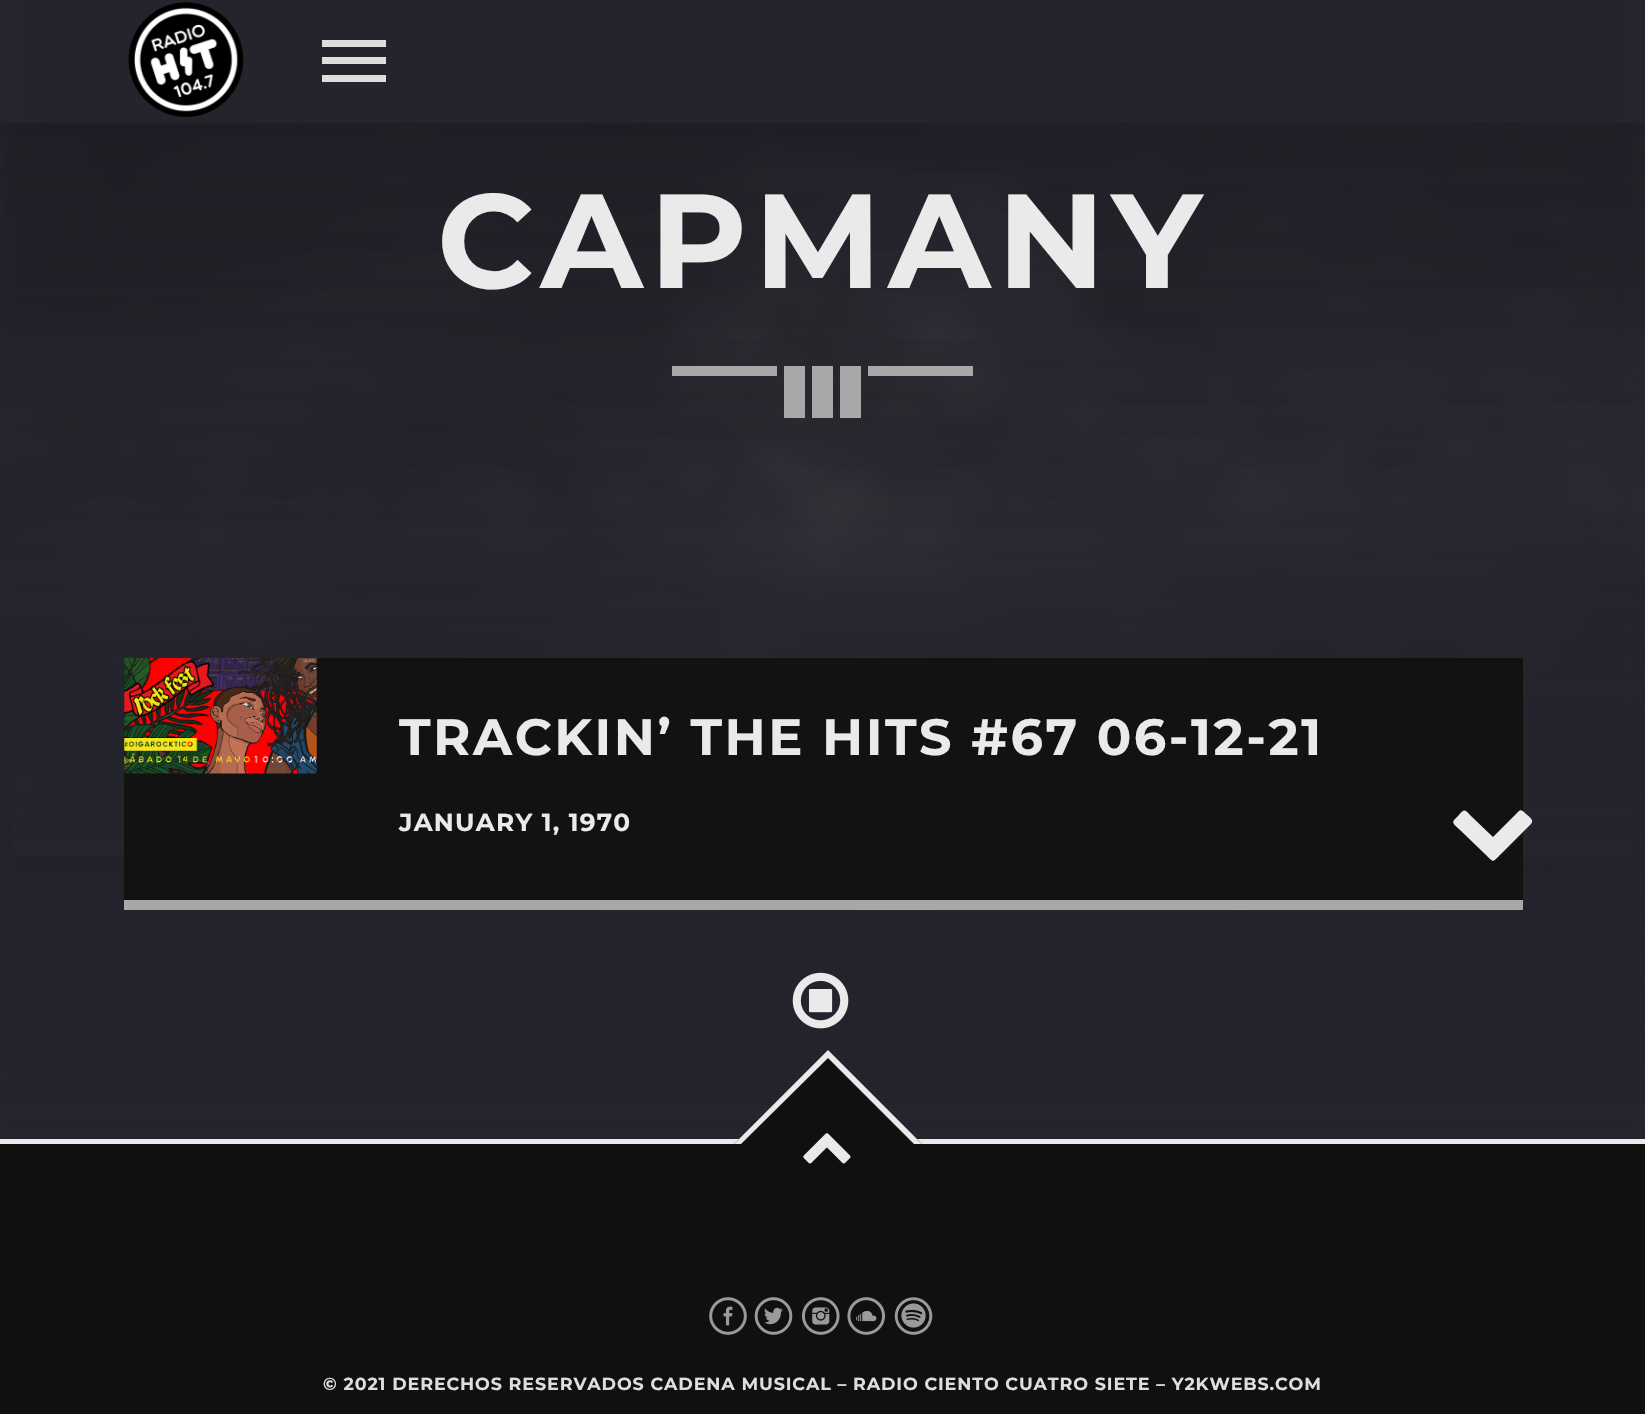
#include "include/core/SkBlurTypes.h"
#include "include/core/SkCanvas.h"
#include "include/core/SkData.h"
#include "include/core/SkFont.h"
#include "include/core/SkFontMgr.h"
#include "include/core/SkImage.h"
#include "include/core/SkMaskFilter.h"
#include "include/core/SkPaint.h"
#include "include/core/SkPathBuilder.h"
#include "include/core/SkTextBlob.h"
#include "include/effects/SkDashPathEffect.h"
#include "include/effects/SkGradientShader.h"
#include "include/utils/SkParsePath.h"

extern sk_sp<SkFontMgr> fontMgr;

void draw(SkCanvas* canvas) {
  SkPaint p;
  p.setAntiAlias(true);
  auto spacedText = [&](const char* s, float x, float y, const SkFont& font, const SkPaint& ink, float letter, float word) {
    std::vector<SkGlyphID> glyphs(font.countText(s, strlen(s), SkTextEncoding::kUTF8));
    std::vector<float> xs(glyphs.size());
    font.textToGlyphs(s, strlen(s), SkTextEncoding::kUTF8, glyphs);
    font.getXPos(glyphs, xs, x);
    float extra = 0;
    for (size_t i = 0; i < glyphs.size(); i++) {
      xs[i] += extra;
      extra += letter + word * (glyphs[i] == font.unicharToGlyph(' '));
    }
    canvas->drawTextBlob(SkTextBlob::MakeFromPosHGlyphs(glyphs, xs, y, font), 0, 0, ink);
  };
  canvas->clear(SkColorSetRGB(36, 36, 45));
  canvas->drawImageRect(SkImages::DeferredFromEncodedData(SkData::MakeFromFileName("images/2.png")), SkRect::MakeLTRB(0, 123, 1645, 1132), SkSamplingOptions());
  p.setColor(SkColorSetARGB(56, 36, 36, 45));
  p.setMaskFilter(SkMaskFilter::MakeBlur(kNormal_SkBlurStyle, 10.5f));
  canvas->drawRect(SkRect::MakeLTRB(0, -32, 1645, 1124), p);
  p.setMaskFilter(nullptr);
  canvas->drawImageRect(SkImages::DeferredFromEncodedData(SkData::MakeFromFileName("images/1.png")), SkRect::MakeLTRB(128, 2, 244, 117), SkSamplingOptions());
  p.setColor(SkColorSetRGB(222, 222, 222));
  canvas->drawPath(SkPathBuilder().moveTo(322, 82).lineTo(386, 82).lineTo(386, 75).lineTo(322, 75).close().moveTo(322, 64).lineTo(386, 64).lineTo(386, 57).lineTo(322, 57).close().moveTo(322, 40).lineTo(322, 47).lineTo(386, 47).lineTo(386, 40).close().detach(), p);
  {
    const SkColor colors[] = {SkColorSetARGB(0, 36, 36, 45), SkColorSetRGB(36, 36, 45)};
    const float stops[] = {0, 1};
    const SkPoint ends[] = {{822, -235}, {823, 1166}};
    p.setShader(SkGradientShader::MakeLinear(ends, colors, stops, 2, SkTileMode::kClamp));
    p.setAlpha(255);
  }
  canvas->drawRect(SkRect::MakeLTRB(0, 123, 1645, 1132), p);
  {
    const SkColor colors[] = {SkColorSetARGB(0, 36, 36, 45), SkColorSetRGB(36, 36, 45)};
    const float stops[] = {0, 1};
    const SkPoint ends[] = {{822, 16}, {823, 1139}};
    p.setShader(SkGradientShader::MakeLinear(ends, colors, stops, 2, SkTileMode::kClamp));
    p.setAlpha(255);
  }
  canvas->drawRect(SkRect::MakeLTRB(12, 340, 1633, 856), p);
  p.setShader(nullptr);
  p.setColor(SkColorSetRGB(168, 168, 168));
  canvas->drawRect(SkRect::MakeLTRB(672, 366, 777, 376), p);
  canvas->drawRect(SkRect::MakeLTRB(812, 366, 833, 418), p);
  canvas->drawRect(SkRect::MakeLTRB(784, 366, 805, 418), p);
  canvas->drawRect(SkRect::MakeLTRB(840, 366, 861, 418), p);
  canvas->drawRect(SkRect::MakeLTRB(868, 366, 973, 376), p);
  canvas->drawRect(SkRect::MakeLTRB(124, 900, 1523, 910), p);
  p.setColor(SkColorSetRGB(18, 18, 18));
  canvas->drawRect(SkRect::MakeLTRB(124, 658, 1523, 900), p);
  canvas->drawImageRect(SkImages::DeferredFromEncodedData(SkData::MakeFromFileName("images/3.png")), SkRect::MakeLTRB(124, 658, 317, 774), SkSamplingOptions());
  p.setColor(SkColorSetRGB(234, 234, 234));
  canvas->drawPath(SkPathBuilder().moveTo(1531, 824).lineTo(1501, 854).cubicTo(1492, 863, 1494, 863, 1485, 854).lineTo(1460, 830).cubicTo(1455, 825, 1450, 823, 1456, 818).cubicTo(1464, 810, 1463, 807, 1471, 816).lineTo(1493, 837).lineTo(1519, 811).cubicTo(1521, 809, 1524, 812, 1526, 814).cubicTo(1528, 816, 1535, 820, 1531, 824).close().detach(), p);
  canvas->drawImageRect(SkImages::DeferredFromEncodedData(SkData::MakeFromFileName("images/4.png")), SkRect::MakeLTRB(792, 972, 849, 1029), SkSamplingOptions());
  p.setColor(SkColorSetRGB(16, 16, 16));
  canvas->drawRect(SkRect::MakeLTRB(0, 1144, 1645, 1414), p);
  p.setColor(SkColorSetRGB(234, 234, 234));
  canvas->drawRect(SkRect::MakeLTRB(0, 1139, 1645, 1144), p);
  p.setColor(SkColorSetRGB(16, 16, 16));
  canvas->drawPath(SkPathBuilder().moveTo(828, 1050).lineTo(922, 1144).lineTo(828, 1238).lineTo(734, 1144).close().detach(), p);
  p.setColor(SkColorSetRGB(234, 234, 234));
  canvas->drawPath(SkPathBuilder().moveTo(828, 1050).lineTo(922, 1144).lineTo(914, 1144).lineTo(828, 1058).close().detach(), p);
  canvas->drawPath(SkPathBuilder().moveTo(734, 1144).lineTo(828, 1050).lineTo(828, 1058).lineTo(741, 1144).close().detach(), p);
  canvas->drawImageRect(SkImages::DeferredFromEncodedData(SkData::MakeFromFileName("images/5.png")), SkRect::MakeLTRB(803, 1133, 851, 1164), SkSamplingOptions());
  canvas->drawImageRect(SkImages::DeferredFromEncodedData(SkData::MakeFromFileName("images/6.png")), SkRect::MakeLTRB(709, 1297, 747, 1335), SkSamplingOptions());
  canvas->drawImageRect(SkImages::DeferredFromEncodedData(SkData::MakeFromFileName("images/7.png")), SkRect::MakeLTRB(754, 1297, 793, 1335), SkSamplingOptions());
  canvas->drawImageRect(SkImages::DeferredFromEncodedData(SkData::MakeFromFileName("images/8.png")), SkRect::MakeLTRB(802, 1297, 840, 1335), SkSamplingOptions());
  canvas->drawImageRect(SkImages::DeferredFromEncodedData(SkData::MakeFromFileName("images/9.png")), SkRect::MakeLTRB(847, 1297, 885, 1335), SkSamplingOptions());
  canvas->drawImageRect(SkImages::DeferredFromEncodedData(SkData::MakeFromFileName("images/10.png")), SkRect::MakeLTRB(894, 1297, 933, 1335), SkSamplingOptions());
  SkFont font1(fontMgr->matchFamilyStyle("Montserrat", SkFontStyle::Bold()), 133.5f);
  font1.setSubpixel(true);
  spacedText("CAPMANY", 437, 288, font1, p, 6.75f, 0);
  SkFont font2(fontMgr->matchFamilyStyle("Montserrat", SkFontStyle::Bold()), 51);
  font2.setSubpixel(true);
  spacedText("TRACKIN’ THE HITS #67 06-12-21", 399, 755, font2, p, 2.55f, 0);
  SkFont font3(fontMgr->matchFamilyStyle("Montserrat", SkFontStyle::Bold()), 24.75f);
  font3.setSubpixel(true);
  spacedText("JANUARY 1, 1970", 399, 831, font3, p, 1.25f, 0);
  SkFont font4(fontMgr->matchFamilyStyle("Montserrat", SkFontStyle::Bold()), 17.5f);
  font4.setSubpixel(true);
  p.setColor(SkColorSetRGB(222, 222, 222));
  spacedText("© 2021 DERECHOS RESERVADOS CADENA MUSICAL – RADIO CIENTO CUATRO SIETE – Y2KWEBS.COM", 323, 1390, font4, p, 0.88f, 0);
}
